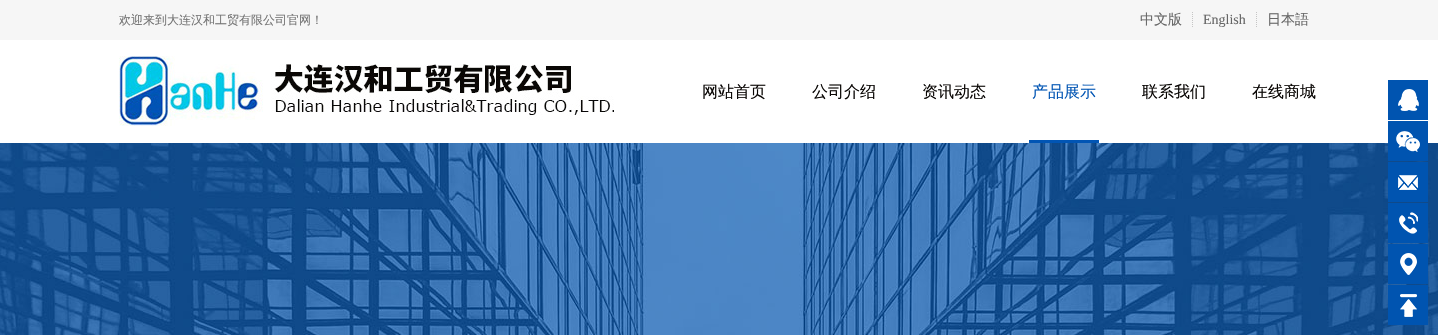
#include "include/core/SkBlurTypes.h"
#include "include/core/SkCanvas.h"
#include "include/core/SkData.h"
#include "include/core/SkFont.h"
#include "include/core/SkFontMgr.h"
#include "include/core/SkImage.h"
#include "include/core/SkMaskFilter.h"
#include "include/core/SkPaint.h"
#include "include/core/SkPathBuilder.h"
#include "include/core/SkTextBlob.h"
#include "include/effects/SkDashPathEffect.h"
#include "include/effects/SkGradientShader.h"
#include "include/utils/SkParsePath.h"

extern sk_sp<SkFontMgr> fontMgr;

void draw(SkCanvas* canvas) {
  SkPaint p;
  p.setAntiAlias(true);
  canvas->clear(SK_ColorWHITE);
  p.setColor(SkColorSetRGB(246, 246, 246));
  canvas->drawRect(SkRect::MakeLTRB(0, 0, 1438, 40), p);
  p.setStyle(SkPaint::kStroke_Style);
  p.setStrokeWidth(1);
  p.setColor(SkColorSetRGB(197, 197, 197));
  p.setPathEffect(SkDashPathEffect::Make({{1, 1}}, 0));
  canvas->drawPath(SkPathBuilder().moveTo(1192.5f, 12).lineTo(1192.5f, 28).detach(), p);
  p.setPathEffect(nullptr);
  p.setPathEffect(SkDashPathEffect::Make({{1, 1}}, 0));
  canvas->drawPath(SkPathBuilder().moveTo(1256.5f, 12).lineTo(1256.5f, 28).detach(), p);
  p.setPathEffect(nullptr);
  canvas->drawImageRect(SkImages::DeferredFromEncodedData(SkData::MakeFromFileName("images/1.png")), SkRect::MakeLTRB(119, 56, 614, 126), SkSamplingOptions());
  p.setStyle(SkPaint::kFill_Style);
  p.setColor(SkColorSetRGB(1, 85, 180));
  canvas->drawRect(SkRect::MakeLTRB(1029, 140, 1099, 143), p);
  p.setColor(SkColorSetRGB(0, 84, 176));
  canvas->drawRect(SkRect::MakeLTRB(1388, 80, 1428, 120), p);
  canvas->drawImageRect(SkImages::DeferredFromEncodedData(SkData::MakeFromFileName("images/2.png")), SkRect::MakeLTRB(1398, 89, 1419, 111), SkSamplingOptions());
  canvas->drawImageRect(SkImages::DeferredFromEncodedData(SkData::MakeFromFileName("images/8.png")), SkRect::MakeLTRB(0, 143, 1438, 335), SkSamplingOptions());
  canvas->drawRect(SkRect::MakeLTRB(1388, 121, 1428, 161), p);
  canvas->drawImageRect(SkImages::DeferredFromEncodedData(SkData::MakeFromFileName("images/3.png")), SkRect::MakeLTRB(1396, 131, 1420, 152), SkSamplingOptions());
  canvas->drawRect(SkRect::MakeLTRB(1388, 162, 1428, 202), p);
  canvas->drawImageRect(SkImages::DeferredFromEncodedData(SkData::MakeFromFileName("images/4.png")), SkRect::MakeLTRB(1398, 175, 1418, 190), SkSamplingOptions());
  canvas->drawRect(SkRect::MakeLTRB(1388, 203, 1428, 243), p);
  canvas->drawImageRect(SkImages::DeferredFromEncodedData(SkData::MakeFromFileName("images/5.png")), SkRect::MakeLTRB(1399, 212, 1418, 234), SkSamplingOptions());
  canvas->drawRect(SkRect::MakeLTRB(1388, 244, 1428, 284), p);
  canvas->drawImageRect(SkImages::DeferredFromEncodedData(SkData::MakeFromFileName("images/6.png")), SkRect::MakeLTRB(1400, 253, 1417, 275), SkSamplingOptions());
  canvas->drawRect(SkRect::MakeLTRB(1388, 285, 1428, 325), p);
  canvas->drawImageRect(SkImages::DeferredFromEncodedData(SkData::MakeFromFileName("images/7.png")), SkRect::MakeLTRB(1400, 294, 1417, 317), SkSamplingOptions());
  SkFont font1(fontMgr->matchFamilyStyle("WenQuanYi Zen Hei", SkFontStyle(500, SkFontStyle::kNormal_Width, SkFontStyle::kUpright_Slant)), 12);
  font1.setSubpixel(true);
  p.setColor(SkColorSetRGB(116, 116, 116));
  canvas->drawString("欢迎来到大连汉和工贸有限公司官网！", 119, 24, font1, p);
  SkFont font2(fontMgr->matchFamilyStyle("WenQuanYi Zen Hei", SkFontStyle(500, SkFontStyle::kNormal_Width, SkFontStyle::kUpright_Slant)), 14);
  font2.setSubpixel(true);
  p.setColor(SkColorSetRGB(102, 102, 102));
  canvas->drawString("中文版", 1140, 24, font2, p);
  SkFont font3(fontMgr->matchFamilyStyle("Liberation Serif", SkFontStyle::Normal()), 14);
  font3.setSubpixel(true);
  canvas->drawString("English", 1203, 24, font3, p);
  canvas->drawString("日本語", 1267, 24, font2, p);
  SkFont font4(fontMgr->matchFamilyStyle("WenQuanYi Zen Hei", SkFontStyle(500, SkFontStyle::kNormal_Width, SkFontStyle::kUpright_Slant)), 16);
  font4.setSubpixel(true);
  p.setColor(SkColorSetRGB(10, 7, 5));
  canvas->drawString("网站首页", 702, 97, font4, p);
  canvas->drawString("公司介绍", 812, 97, font4, p);
  canvas->drawString("资讯动态", 922, 97, font4, p);
  p.setColor(SkColorSetRGB(1, 85, 180));
  canvas->drawString("产品展示", 1032, 97, font4, p);
  p.setColor(SkColorSetRGB(10, 7, 5));
  canvas->drawString("联系我们", 1142, 97, font4, p);
  canvas->drawString("在线商城", 1252, 97, font4, p);
}
